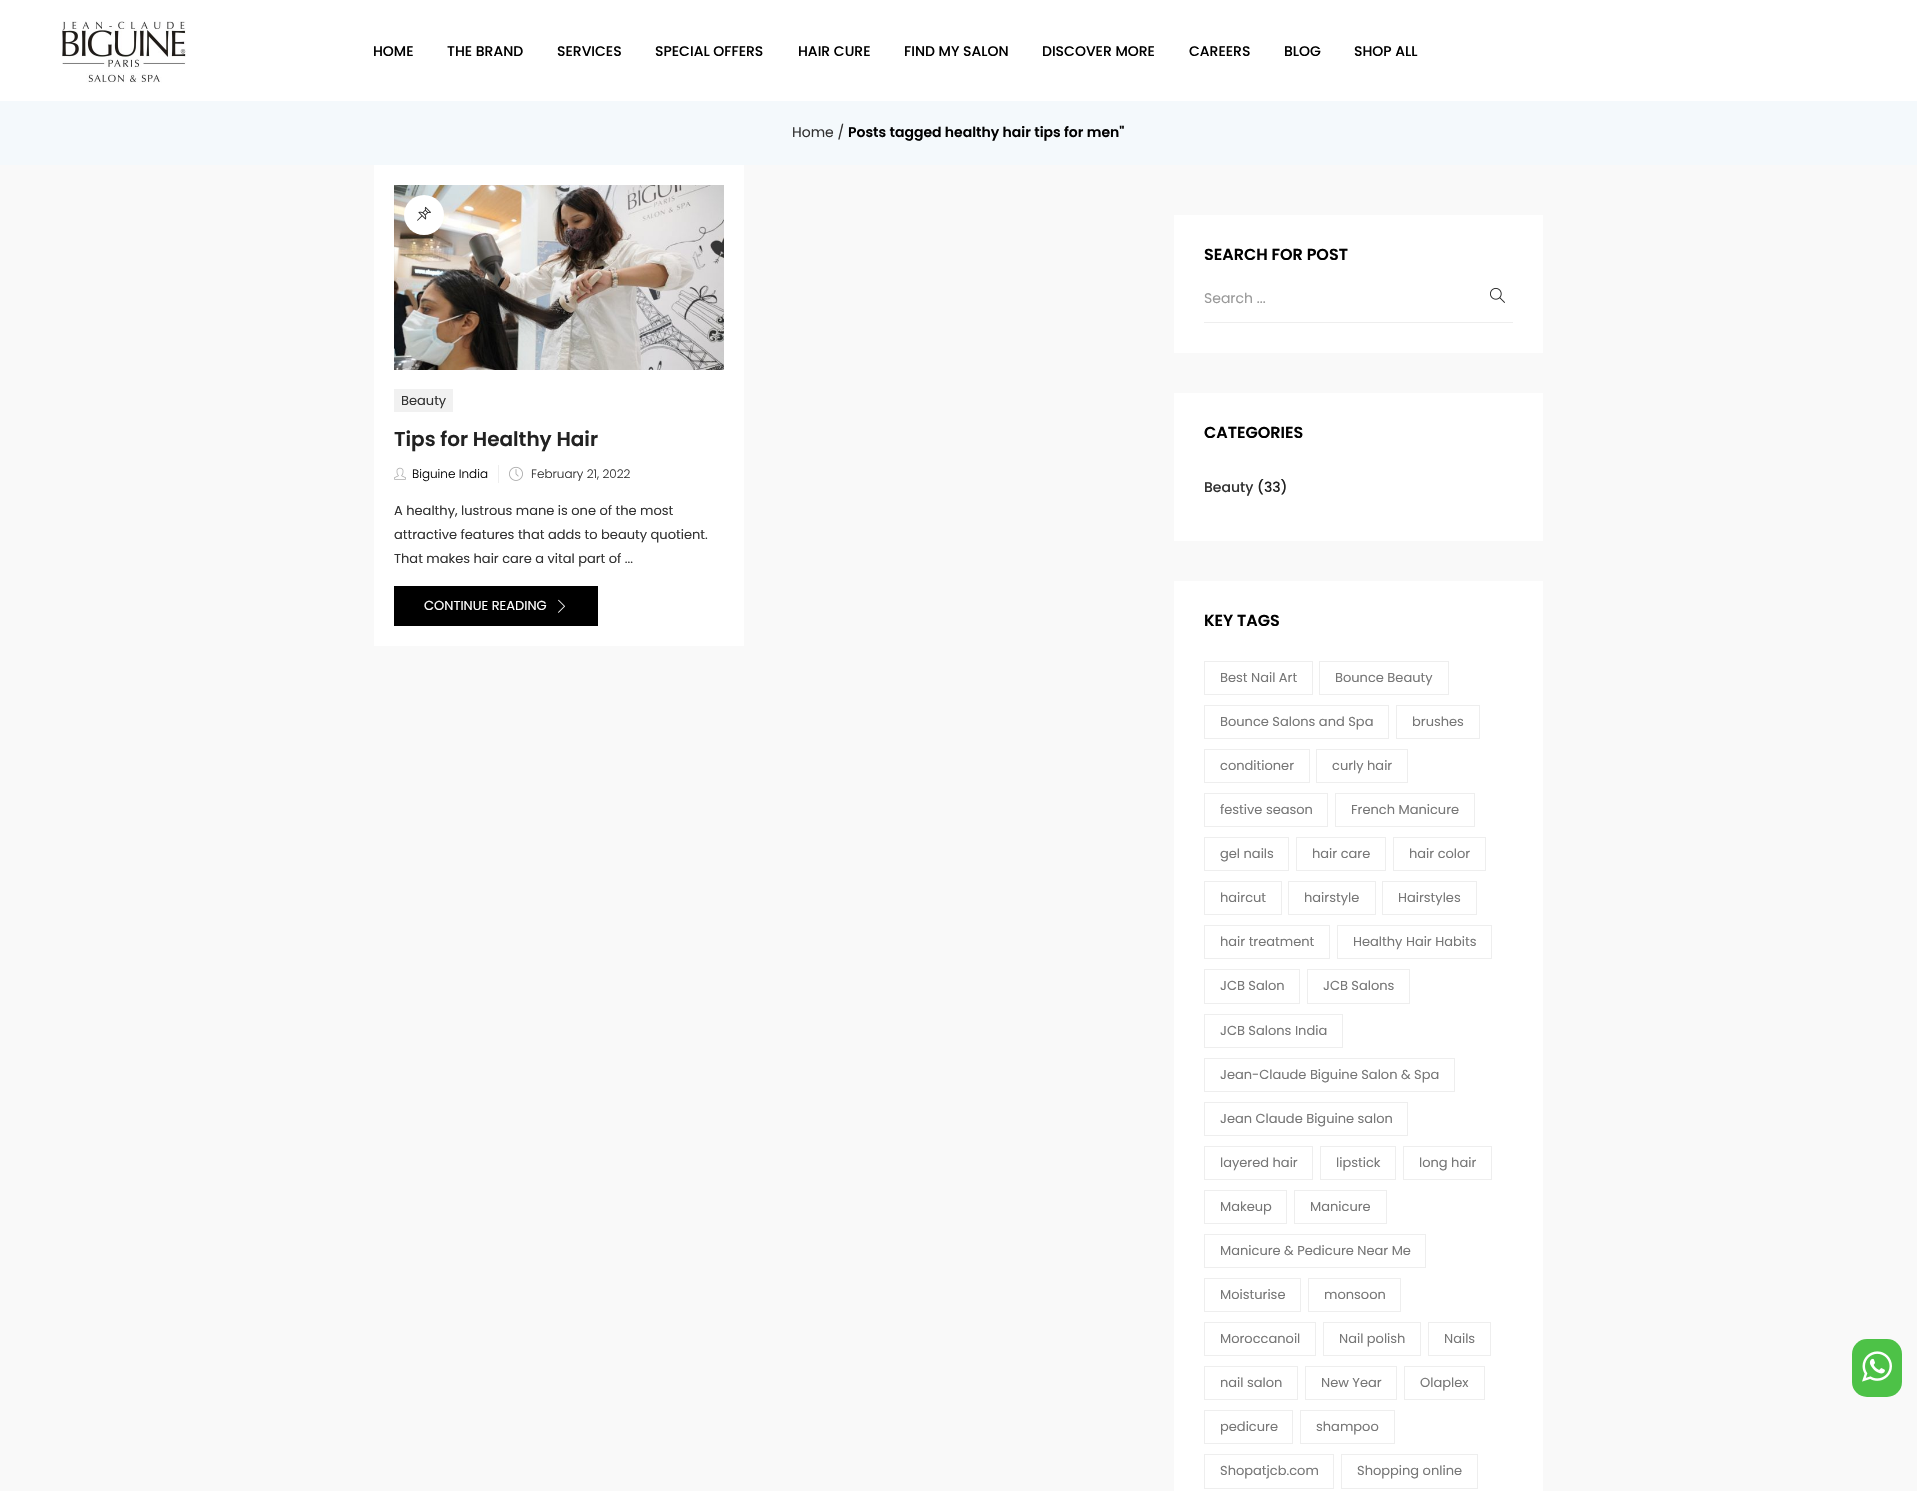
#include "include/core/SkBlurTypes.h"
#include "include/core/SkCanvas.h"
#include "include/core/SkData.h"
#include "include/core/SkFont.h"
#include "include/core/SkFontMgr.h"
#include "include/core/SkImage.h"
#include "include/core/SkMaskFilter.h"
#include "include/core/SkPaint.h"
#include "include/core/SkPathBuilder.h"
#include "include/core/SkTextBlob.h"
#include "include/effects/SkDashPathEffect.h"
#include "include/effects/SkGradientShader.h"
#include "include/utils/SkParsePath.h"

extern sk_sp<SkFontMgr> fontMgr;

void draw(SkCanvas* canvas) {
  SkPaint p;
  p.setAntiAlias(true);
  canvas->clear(SK_ColorWHITE);
  canvas->drawImageRect(SkImages::DeferredFromEncodedData(SkData::MakeFromFileName("images/1.png")), SkRect::MakeLTRB(62, 21, 186, 83), SkSamplingOptions());
  p.setColor(SkColorSetRGB(249, 249, 249));
  canvas->drawRect(SkRect::MakeLTRB(0, 165, 1917, 1491), p);
  p.setColor(SkColorSetRGB(244, 249, 252));
  canvas->drawRect(SkRect::MakeLTRB(0, 101, 1917, 165), p);
  p.setColor(SK_ColorWHITE);
  canvas->drawRect(SkRect::MakeLTRB(374, 165, 744, 646), p);
  canvas->drawImageRect(SkImages::DeferredFromEncodedData(SkData::MakeFromFileName("images/2.png")), SkRect::MakeLTRB(394, 185, 724, 370), SkSamplingOptions());
  canvas->drawCircle(424, 215, 20, p);
  canvas->drawImageRect(SkImages::DeferredFromEncodedData(SkData::MakeFromFileName("images/3.png")), SkRect::MakeLTRB(417, 206, 431, 221), SkSamplingOptions());
  p.setColor(SkColorSetRGB(241, 241, 241));
  canvas->drawRect(SkRect::MakeLTRB(394, 389, 453, 412), p);
  canvas->drawImageRect(SkImages::DeferredFromEncodedData(SkData::MakeFromFileName("images/4.png")), SkRect::MakeLTRB(394, 467, 406, 480), SkSamplingOptions());
  p.setColor(SkColorSetRGB(238, 238, 238));
  canvas->drawRect(SkRect::MakeLTRB(498, 465, 499, 483), p);
  canvas->drawImageRect(SkImages::DeferredFromEncodedData(SkData::MakeFromFileName("images/5.png")), SkRect::MakeLTRB(509, 466, 523, 481), SkSamplingOptions());
  p.setColor(SK_ColorBLACK);
  canvas->drawRect(SkRect::MakeLTRB(394, 586, 598, 626), p);
  canvas->drawImageRect(SkImages::DeferredFromEncodedData(SkData::MakeFromFileName("images/6.png")), SkRect::MakeLTRB(558, 599, 565, 613), SkSamplingOptions());
  p.setColor(SK_ColorWHITE);
  canvas->drawRect(SkRect::MakeLTRB(1174, 215, 1543, 353), p);
  p.setColor(SkColorSetRGB(238, 238, 238));
  canvas->drawRect(SkRect::MakeLTRB(1204, 322, 1513, 323), p);
  canvas->drawImageRect(SkImages::DeferredFromEncodedData(SkData::MakeFromFileName("images/7.png")), SkRect::MakeLTRB(1490, 287, 1505, 303), SkSamplingOptions());
  p.setColor(SK_ColorWHITE);
  canvas->drawRect(SkRect::MakeLTRB(1174, 393, 1543, 541), p);
  canvas->drawRect(SkRect::MakeLTRB(1174, 581, 1543, 1491), p);
  p.setStyle(SkPaint::kStroke_Style);
  p.setStrokeWidth(1);
  p.setColor(SkColorSetRGB(238, 238, 238));
  canvas->drawRect(SkRect::MakeLTRB(1204.5f, 661.5f, 1312.5f, 694.5f), p);
  canvas->drawRect(SkRect::MakeLTRB(1319.5f, 661.5f, 1448.5f, 694.5f), p);
  canvas->drawRect(SkRect::MakeLTRB(1204.5f, 705.5f, 1388.5f, 738.5f), p);
  canvas->drawRect(SkRect::MakeLTRB(1396.5f, 705.5f, 1479.5f, 738.5f), p);
  canvas->drawRect(SkRect::MakeLTRB(1204.5f, 749.5f, 1309.5f, 782.5f), p);
  canvas->drawRect(SkRect::MakeLTRB(1316.5f, 749.5f, 1407.5f, 782.5f), p);
  canvas->drawRect(SkRect::MakeLTRB(1204.5f, 793.5f, 1327.5f, 826.5f), p);
  canvas->drawRect(SkRect::MakeLTRB(1335.5f, 793.5f, 1474.5f, 826.5f), p);
  canvas->drawRect(SkRect::MakeLTRB(1204.5f, 837.5f, 1288.5f, 870.5f), p);
  canvas->drawRect(SkRect::MakeLTRB(1296.5f, 837.5f, 1385.5f, 870.5f), p);
  canvas->drawRect(SkRect::MakeLTRB(1393.5f, 837.5f, 1485.5f, 870.5f), p);
  canvas->drawRect(SkRect::MakeLTRB(1204.5f, 881.5f, 1281.5f, 914.5f), p);
  canvas->drawRect(SkRect::MakeLTRB(1288.5f, 881.5f, 1375.5f, 914.5f), p);
  canvas->drawRect(SkRect::MakeLTRB(1382.5f, 881.5f, 1476.5f, 914.5f), p);
  canvas->drawRect(SkRect::MakeLTRB(1204.5f, 925.5f, 1329.5f, 958.5f), p);
  canvas->drawRect(SkRect::MakeLTRB(1337.5f, 925.5f, 1491.5f, 958.5f), p);
  canvas->drawRect(SkRect::MakeLTRB(1204.5f, 969.5f, 1299.5f, 1003.5f), p);
  canvas->drawRect(SkRect::MakeLTRB(1307.5f, 969.5f, 1409.5f, 1003.5f), p);
  canvas->drawRect(SkRect::MakeLTRB(1204.5f, 1014.5f, 1342.5f, 1047.5f), p);
  canvas->drawRect(SkRect::MakeLTRB(1204.5f, 1058.5f, 1454.5f, 1091.5f), p);
  canvas->drawRect(SkRect::MakeLTRB(1204.5f, 1102.5f, 1407.5f, 1135.5f), p);
  canvas->drawRect(SkRect::MakeLTRB(1204.5f, 1146.5f, 1312.5f, 1179.5f), p);
  canvas->drawRect(SkRect::MakeLTRB(1320.5f, 1146.5f, 1395.5f, 1179.5f), p);
  canvas->drawRect(SkRect::MakeLTRB(1403.5f, 1146.5f, 1491.5f, 1179.5f), p);
  canvas->drawRect(SkRect::MakeLTRB(1204.5f, 1190.5f, 1286.5f, 1223.5f), p);
  canvas->drawRect(SkRect::MakeLTRB(1294.5f, 1190.5f, 1386.5f, 1223.5f), p);
  canvas->drawRect(SkRect::MakeLTRB(1204.5f, 1234.5f, 1425.5f, 1267.5f), p);
  canvas->drawRect(SkRect::MakeLTRB(1204.5f, 1278.5f, 1300.5f, 1311.5f), p);
  canvas->drawRect(SkRect::MakeLTRB(1308.5f, 1278.5f, 1400.5f, 1311.5f), p);
  canvas->drawRect(SkRect::MakeLTRB(1204.5f, 1322.5f, 1315.5f, 1355.5f), p);
  canvas->drawRect(SkRect::MakeLTRB(1323.5f, 1322.5f, 1420.5f, 1355.5f), p);
  canvas->drawRect(SkRect::MakeLTRB(1428.5f, 1322.5f, 1490.5f, 1355.5f), p);
  canvas->drawRect(SkRect::MakeLTRB(1204.5f, 1366.5f, 1297.5f, 1399.5f), p);
  canvas->drawRect(SkRect::MakeLTRB(1305.5f, 1366.5f, 1396.5f, 1399.5f), p);
  canvas->drawRect(SkRect::MakeLTRB(1404.5f, 1366.5f, 1484.5f, 1399.5f), p);
  canvas->drawRect(SkRect::MakeLTRB(1204.5f, 1410.5f, 1292.5f, 1443.5f), p);
  canvas->drawRect(SkRect::MakeLTRB(1300.5f, 1410.5f, 1394.5f, 1443.5f), p);
  canvas->drawRect(SkRect::MakeLTRB(1204.5f, 1454.5f, 1333.5f, 1488.5f), p);
  canvas->drawRect(SkRect::MakeLTRB(1341.5f, 1454.5f, 1477.5f, 1488.5f), p);
  p.setStyle(SkPaint::kFill_Style);
  p.setColor(SkColorSetRGB(77, 194, 71));
  canvas->drawRoundRect(SkRect::MakeLTRB(1852, 1339, 1902, 1397), 15, 15, p);
  canvas->drawImageRect(SkImages::DeferredFromEncodedData(SkData::MakeFromFileName("images/8.png")), SkRect::MakeLTRB(1862, 1351, 1892, 1382), SkSamplingOptions());
  SkFont font1(fontMgr->matchFamilyStyle("Poppins", SkFontStyle(500, SkFontStyle::kNormal_Width, SkFontStyle::kUpright_Slant)), 14);
  font1.setSubpixel(true);
  p.setColor(SK_ColorBLACK);
  canvas->drawString("HOME", 373, 56, font1, p);
  canvas->drawString("THE BRAND", 447, 56, font1, p);
  canvas->drawString("SERVICES", 557, 56, font1, p);
  canvas->drawString("SPECIAL OFFERS", 655, 56, font1, p);
  canvas->drawString("HAIR CURE", 798, 56, font1, p);
  canvas->drawString("FIND MY SALON", 904, 56, font1, p);
  canvas->drawString("DISCOVER MORE", 1042, 56, font1, p);
  canvas->drawString("CAREERS", 1189, 56, font1, p);
  canvas->drawString("BLOG", 1284, 56, font1, p);
  canvas->drawString("SHOP ALL", 1354, 56, font1, p);
  SkFont font2(fontMgr->matchFamilyStyle("Poppins", SkFontStyle::Normal()), 14);
  font2.setSubpixel(true);
  p.setColor(SkColorSetRGB(51, 51, 51));
  canvas->drawString("Home /", 792, 137, font2, p);
  SkFont font3(fontMgr->matchFamilyStyle("Poppins", SkFontStyle(600, SkFontStyle::kNormal_Width, SkFontStyle::kUpright_Slant)), 14);
  font3.setSubpixel(true);
  p.setColor(SK_ColorBLACK);
  canvas->drawString("Posts tagged healthy hair tips for men\"", 848, 137, font3, p);
  SkFont font4(fontMgr->matchFamilyStyle("Poppins", SkFontStyle::Normal()), 13);
  font4.setSubpixel(true);
  p.setColor(SkColorSetRGB(51, 51, 51));
  canvas->drawString("Beauty", 401, 405, font4, p);
  SkFont font5(fontMgr->matchFamilyStyle("Poppins", SkFontStyle(600, SkFontStyle::kNormal_Width, SkFontStyle::kUpright_Slant)), 20);
  font5.setSubpixel(true);
  p.setColor(SkColorSetRGB(34, 34, 34));
  canvas->drawString("Tips for Healthy Hair", 394, 446, font5, p);
  SkFont font6(fontMgr->matchFamilyStyle("Poppins", SkFontStyle(300, SkFontStyle::kNormal_Width, SkFontStyle::kUpright_Slant)), 12);
  font6.setSubpixel(true);
  p.setColor(SK_ColorBLACK);
  canvas->drawString("Biguine India", 412, 478, font6, p);
  p.setColor(SkColorSetRGB(51, 51, 51));
  canvas->drawString("February 21, 2022", 531, 478, font6, p);
  canvas->drawString("A healthy, lustrous mane is one of the most", 394, 515, font4, p);
  canvas->drawString("attractive features that adds to beauty quotient.", 394, 539, font4, p);
  canvas->drawString("That makes hair care a vital part of ...", 394, 563, font4, p);
  p.setColor(SK_ColorWHITE);
  canvas->drawString("CONTINUE READING", 424, 610, font4, p);
  SkFont font7(fontMgr->matchFamilyStyle("Poppins", SkFontStyle(600, SkFontStyle::kNormal_Width, SkFontStyle::kUpright_Slant)), 16);
  font7.setSubpixel(true);
  p.setColor(SK_ColorBLACK);
  canvas->drawString("SEARCH FOR POST", 1204, 260, font7, p);
  p.setColor(SkColorSetRGB(153, 153, 153));
  canvas->drawString("Search ...", 1204, 303, font2, p);
  p.setColor(SK_ColorBLACK);
  canvas->drawString("CATEGORIES", 1204, 438, font7, p);
  p.setColor(SkColorSetRGB(51, 51, 51));
  canvas->drawString("Beauty", 1204, 492, font1, p);
  p.setColor(SkColorSetRGB(34, 34, 34));
  canvas->drawString("(33)", 1257, 492, font1, p);
  p.setColor(SK_ColorBLACK);
  canvas->drawString("KEY TAGS", 1204, 626, font7, p);
  p.setColor(SkColorSetRGB(119, 119, 119));
  canvas->drawString("Best Nail Art", 1220, 682, font4, p);
  canvas->drawString("Bounce Beauty", 1335, 682, font4, p);
  canvas->drawString("Bounce Salons and Spa", 1220, 726, font4, p);
  canvas->drawString("brushes", 1412, 726, font4, p);
  canvas->drawString("conditioner", 1220, 770, font4, p);
  canvas->drawString("curly hair", 1332, 770, font4, p);
  canvas->drawString("festive season", 1220, 814, font4, p);
  canvas->drawString("French Manicure", 1351, 814, font4, p);
  canvas->drawString("gel nails", 1220, 858, font4, p);
  canvas->drawString("hair care", 1312, 858, font4, p);
  canvas->drawString("hair color", 1409, 858, font4, p);
  canvas->drawString("haircut", 1220, 902, font4, p);
  canvas->drawString("hairstyle", 1304, 902, font4, p);
  canvas->drawString("Hairstyles", 1398, 902, font4, p);
  canvas->drawString("hair treatment", 1220, 946, font4, p);
  canvas->drawString("Healthy Hair Habits", 1353, 946, font4, p);
  canvas->drawString("JCB Salon", 1220, 990, font4, p);
  canvas->drawString("JCB Salons", 1323, 990, font4, p);
  canvas->drawString("JCB Salons India", 1220, 1035, font4, p);
  canvas->drawString("Jean-Claude Biguine Salon & Spa", 1220, 1079, font4, p);
  canvas->drawString("Jean Claude Biguine salon", 1220, 1123, font4, p);
  canvas->drawString("layered hair", 1220, 1167, font4, p);
  canvas->drawString("lipstick", 1336, 1167, font4, p);
  canvas->drawString("long hair", 1419, 1167, font4, p);
  canvas->drawString("Makeup", 1220, 1211, font4, p);
  canvas->drawString("Manicure", 1310, 1211, font4, p);
  canvas->drawString("Manicure & Pedicure Near Me", 1220, 1255, font4, p);
  canvas->drawString("Moisturise", 1220, 1299, font4, p);
  canvas->drawString("monsoon", 1324, 1299, font4, p);
  canvas->drawString("Moroccanoil", 1220, 1343, font4, p);
  canvas->drawString("Nail polish", 1339, 1343, font4, p);
  canvas->drawString("Nails", 1444, 1343, font4, p);
  canvas->drawString("nail salon", 1220, 1387, font4, p);
  canvas->drawString("New Year", 1321, 1387, font4, p);
  canvas->drawString("Olaplex", 1420, 1387, font4, p);
  canvas->drawString("pedicure", 1220, 1431, font4, p);
  canvas->drawString("shampoo", 1316, 1431, font4, p);
  canvas->drawString("Shopatjcb.com", 1220, 1475, font4, p);
  canvas->drawString("Shopping online", 1357, 1475, font4, p);
}
